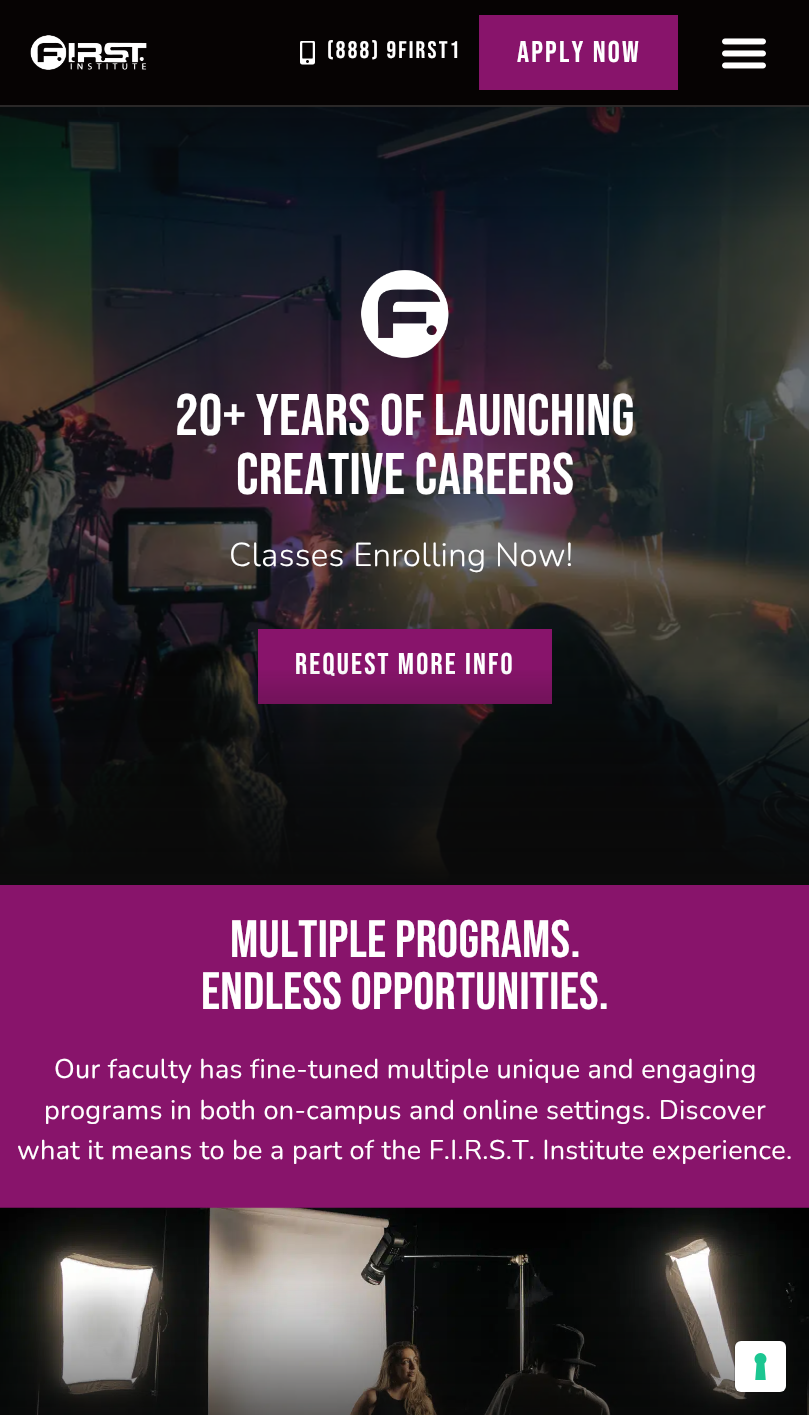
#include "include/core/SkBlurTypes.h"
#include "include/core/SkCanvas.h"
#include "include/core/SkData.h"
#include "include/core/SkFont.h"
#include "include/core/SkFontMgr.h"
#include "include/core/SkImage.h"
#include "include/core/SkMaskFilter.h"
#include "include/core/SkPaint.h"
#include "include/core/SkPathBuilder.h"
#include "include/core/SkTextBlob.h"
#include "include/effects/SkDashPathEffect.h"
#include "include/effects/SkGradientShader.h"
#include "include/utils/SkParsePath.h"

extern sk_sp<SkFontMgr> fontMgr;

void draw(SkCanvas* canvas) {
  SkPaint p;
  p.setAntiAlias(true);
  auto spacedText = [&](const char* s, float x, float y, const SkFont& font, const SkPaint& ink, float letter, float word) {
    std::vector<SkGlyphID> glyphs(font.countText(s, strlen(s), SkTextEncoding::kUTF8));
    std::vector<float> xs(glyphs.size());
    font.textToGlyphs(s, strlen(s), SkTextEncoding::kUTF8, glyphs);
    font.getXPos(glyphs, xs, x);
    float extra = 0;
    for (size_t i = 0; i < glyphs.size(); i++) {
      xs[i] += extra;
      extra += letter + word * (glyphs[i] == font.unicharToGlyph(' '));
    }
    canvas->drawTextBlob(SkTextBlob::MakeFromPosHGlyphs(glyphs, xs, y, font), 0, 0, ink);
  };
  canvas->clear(SK_ColorWHITE);
  p.setColor(SkColorSetRGB(6, 3, 3));
  canvas->drawRect(SkRect::MakeLTRB(0, 0, 809, 105), p);
  p.setColor(SkColorSetRGB(42, 40, 40));
  canvas->drawRect(SkRect::MakeLTRB(0, 105, 809, 107), p);
  canvas->drawImageRect(SkImages::DeferredFromEncodedData(SkData::MakeFromFileName("images/1.png")), SkRect::MakeLTRB(30, 35, 147, 70), SkSamplingOptions());
  canvas->drawImageRect(SkImages::DeferredFromEncodedData(SkData::MakeFromFileName("images/2.png")), SkRect::MakeLTRB(300, 41, 315, 65), SkSamplingOptions());
  p.setColor(SkColorSetRGB(136, 20, 107));
  canvas->drawRect(SkRect::MakeLTRB(479, 15, 678, 90), p);
  canvas->drawImageRect(SkImages::DeferredFromEncodedData(SkData::MakeFromFileName("images/3.png")), SkRect::MakeLTRB(722, 38, 766, 69), SkSamplingOptions());
  canvas->drawImageRect(SkImages::DeferredFromEncodedData(SkData::MakeFromFileName("images/4.png")), SkRect::MakeLTRB(0, 107, 809, 884), SkSamplingOptions());
  canvas->drawImageRect(SkImages::DeferredFromEncodedData(SkData::MakeFromFileName("images/5.png")), SkRect::MakeLTRB(361, 270, 449, 358), SkSamplingOptions());
  canvas->drawRect(SkRect::MakeLTRB(258, 629, 552, 704), p);
  canvas->drawRect(SkRect::MakeLTRB(0, 885, 809, 1208), p);
  canvas->drawImageRect(SkImages::DeferredFromEncodedData(SkData::MakeFromFileName("images/6.png")), SkRect::MakeLTRB(0, 1207, 809, 1415), SkSamplingOptions());
  p.setStyle(SkPaint::kStroke_Style);
  p.setStrokeWidth(2);
  p.setColor(SkColorSetARGB(38, 0, 0, 0));
  canvas->drawRoundRect(SkRect::MakeLTRB(735, 1341, 787, 1393), 7, 7, p);
  p.setStyle(SkPaint::kFill_Style);
  p.setColor(SK_ColorWHITE);
  canvas->drawRoundRect(SkRect::MakeLTRB(735, 1341, 786, 1392), 6, 6, p);
  canvas->drawImageRect(SkImages::DeferredFromEncodedData(SkData::MakeFromFileName("images/7.png")), SkRect::MakeLTRB(754, 1353, 767, 1380), SkSamplingOptions());
  SkFont font1(fontMgr->matchFamilyStyle("Bebas Neue", SkFontStyle::Normal()), 24);
  font1.setSubpixel(true);
  spacedText("(888) 9FIRST1", 327, 58, font1, p, 2.25f, 0);
  SkFont font2(fontMgr->matchFamilyStyle("Bebas Neue", SkFontStyle::Normal()), 30);
  font2.setSubpixel(true);
  spacedText("APPLY NOW", 517, 62, font2, p, 2.25f, 0);
  SkFont font3(fontMgr->matchFamilyStyle("Bebas Neue", SkFontStyle::Normal()), 58.5f);
  font3.setSubpixel(true);
  spacedText("20+ YEARS OF LAUNCHING", 175, 435, font3, p, 0.3f, 0);
  spacedText("CREATIVE CAREERS", 236, 494, font3, p, 0.3f, 0);
  SkFont font4(fontMgr->matchFamilyStyle("Nunito", SkFontStyle(300, SkFontStyle::kNormal_Width, SkFontStyle::kUpright_Slant)), 33);
  font4.setSubpixel(true);
  spacedText("Classes Enrolling Now!", 229, 566, font4, p, 0.3f, 0);
  spacedText("REQUEST MORE INFO", 295, 674, font2, p, 2.25f, 0);
  {
    const SkColor colors[] = {SkColorSetRGB(10, 10, 10), SkColorSetARGB(0, 10, 10, 10)};
    const float stops[] = {0, 1};
    const SkPoint ends[] = {{405, 885}, {405, 665}};
    p.setShader(SkGradientShader::MakeLinear(ends, colors, stops, 2, SkTileMode::kClamp));
    p.setAlpha(255);
  }
  canvas->drawRect(SkRect::MakeLTRB(0, 670, 809, 885), p);
  SkFont font5(fontMgr->matchFamilyStyle("Bebas Neue", SkFontStyle::Normal()), 52.5f);
  font5.setSubpixel(true);
  p.setShader(nullptr);
  p.setColor(SK_ColorWHITE);
  spacedText("MULTIPLE PROGRAMS.", 230, 957, font5, p, 0.3f, 0);
  spacedText("ENDLESS OPPORTUNITIES.", 201, 1009, font5, p, 0.3f, 0);
  SkFont font6(fontMgr->matchFamilyStyle("Nunito", SkFontStyle::Normal()), 27);
  font6.setSubpixel(true);
  spacedText("Our faculty has fine-tuned multiple unique and engaging", 54, 1078, font6, p, 0.3f, 0);
  spacedText("programs in both on-campus and online settings. Discover", 44, 1119, font6, p, 0.3f, 0);
  spacedText("what it means to be a part of the F.I.R.S.T. Institute experience.", 17, 1159, font6, p, 0.3f, 0);
}
